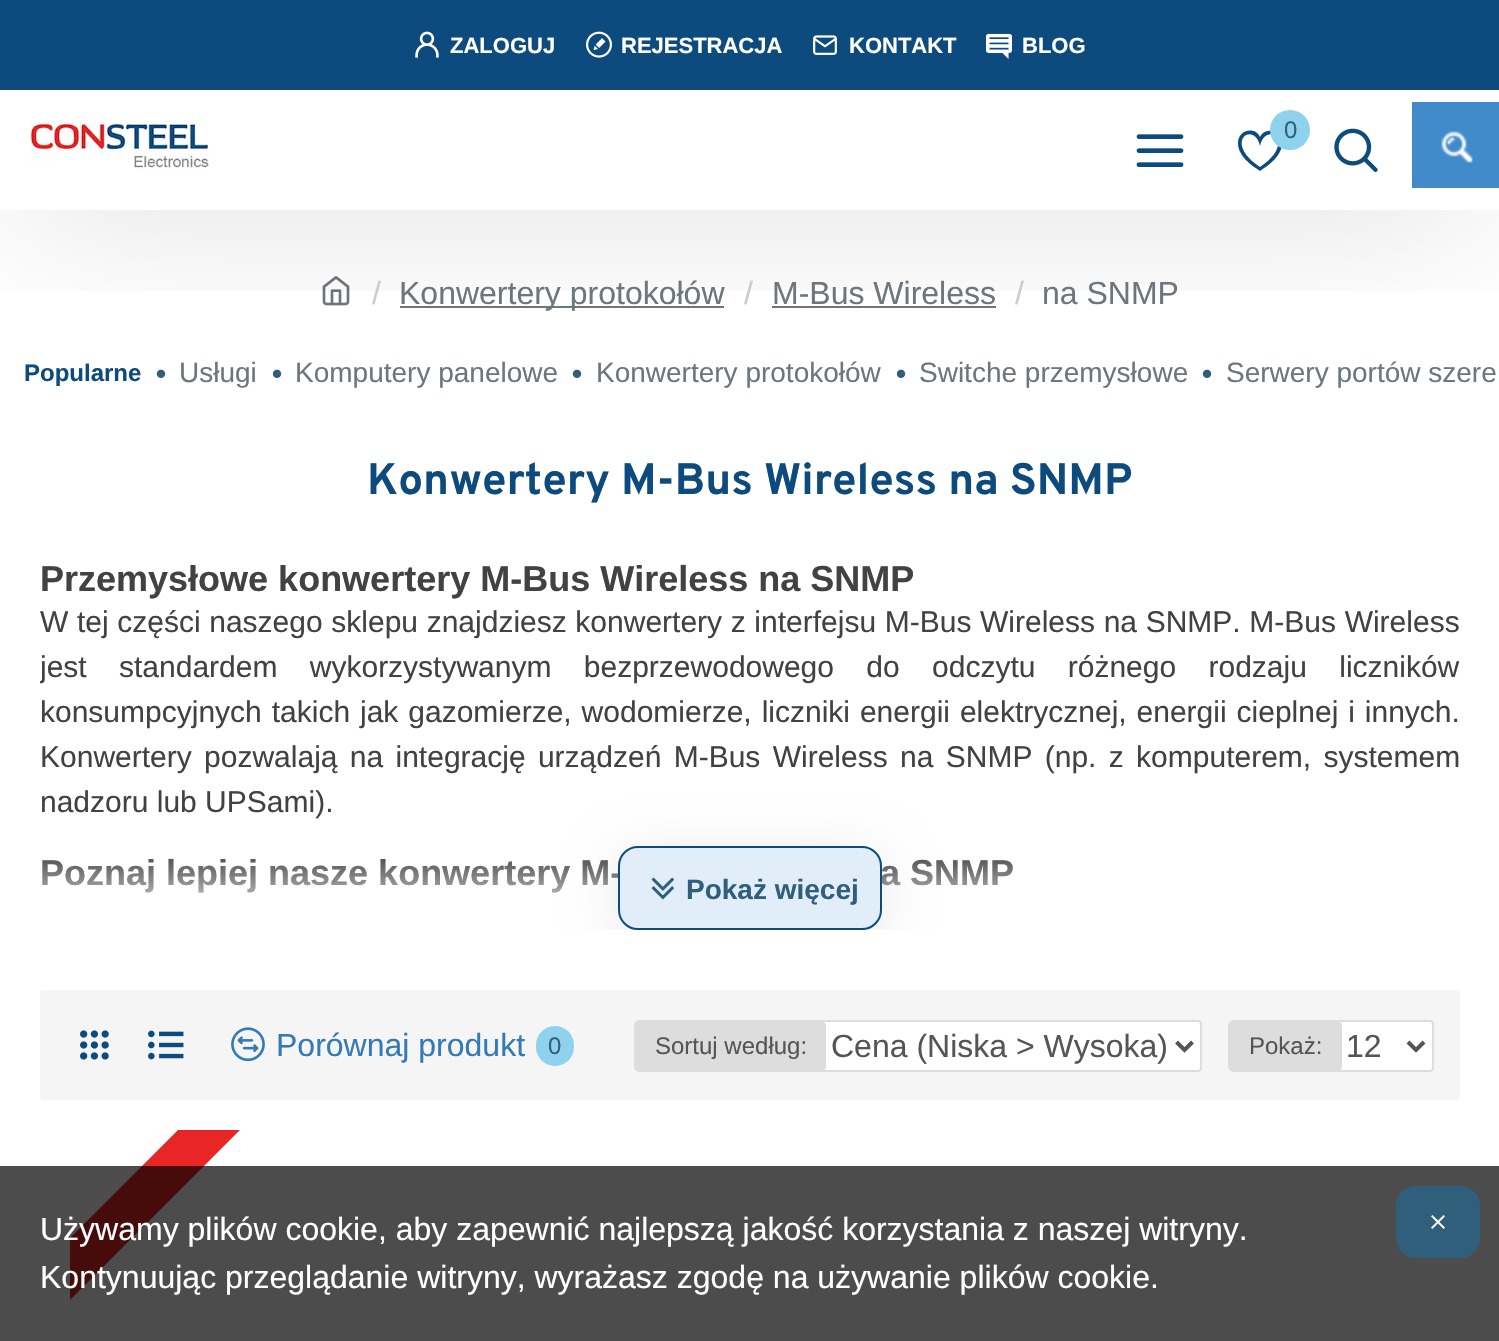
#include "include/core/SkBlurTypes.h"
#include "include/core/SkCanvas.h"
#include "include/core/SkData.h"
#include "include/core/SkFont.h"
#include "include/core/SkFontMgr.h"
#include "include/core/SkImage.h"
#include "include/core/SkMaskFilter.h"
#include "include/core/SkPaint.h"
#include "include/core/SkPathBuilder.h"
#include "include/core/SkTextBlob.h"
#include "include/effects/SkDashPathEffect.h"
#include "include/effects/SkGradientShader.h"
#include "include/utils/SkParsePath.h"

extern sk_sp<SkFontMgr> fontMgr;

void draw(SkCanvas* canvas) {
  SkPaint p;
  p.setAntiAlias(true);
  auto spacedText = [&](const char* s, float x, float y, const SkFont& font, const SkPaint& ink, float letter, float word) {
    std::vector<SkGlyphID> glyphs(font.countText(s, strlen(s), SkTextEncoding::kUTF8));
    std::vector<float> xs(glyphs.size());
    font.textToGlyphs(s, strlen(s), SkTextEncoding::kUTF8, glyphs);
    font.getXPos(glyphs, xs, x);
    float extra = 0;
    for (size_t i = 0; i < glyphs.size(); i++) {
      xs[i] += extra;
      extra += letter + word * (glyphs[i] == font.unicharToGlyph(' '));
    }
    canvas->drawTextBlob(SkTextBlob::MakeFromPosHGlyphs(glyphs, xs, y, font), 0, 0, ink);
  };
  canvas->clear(SK_ColorWHITE);
  canvas->drawImageRect(SkImages::DeferredFromEncodedData(SkData::MakeFromFileName("images/8.png")), SkRect::MakeLTRB(322, 276, 350, 306), SkSamplingOptions());
  p.setColor(SkColorSetRGB(109, 118, 125));
  canvas->drawRect(SkRect::MakeLTRB(400, 306, 724, 308), p);
  canvas->drawRect(SkRect::MakeLTRB(772, 306, 996, 308), p);
  canvas->drawImageRect(SkImages::DeferredFromEncodedData(SkData::MakeFromFileName("images/9.png")), SkRect::MakeLTRB(156, 369, 166, 378), SkSamplingOptions());
  canvas->drawImageRect(SkImages::DeferredFromEncodedData(SkData::MakeFromFileName("images/9.png")), SkRect::MakeLTRB(272, 369, 282, 378), SkSamplingOptions());
  canvas->drawImageRect(SkImages::DeferredFromEncodedData(SkData::MakeFromFileName("images/9.png")), SkRect::MakeLTRB(572, 369, 582, 378), SkSamplingOptions());
  canvas->drawImageRect(SkImages::DeferredFromEncodedData(SkData::MakeFromFileName("images/9.png")), SkRect::MakeLTRB(896, 369, 906, 378), SkSamplingOptions());
  canvas->drawImageRect(SkImages::DeferredFromEncodedData(SkData::MakeFromFileName("images/9.png")), SkRect::MakeLTRB(1202, 369, 1212, 378), SkSamplingOptions());
  canvas->save();
  canvas->clipRect(SkRect::MakeLTRB(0, 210, 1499, 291));
  p.setColor(SkColorSetARGB(51, 0, 0, 0));
  p.setMaskFilter(SkMaskFilter::MakeBlur(kNormal_SkBlurStyle, 85));
  canvas->drawRect(SkRect::MakeLTRB(20, 110, 1480, 190), p);
  p.setMaskFilter(nullptr);
  canvas->restore();
  p.setColor(SkColorSetRGB(13, 75, 126));
  canvas->drawRect(SkRect::MakeLTRB(0, 0, 1499, 90), p);
  canvas->drawImageRect(SkImages::DeferredFromEncodedData(SkData::MakeFromFileName("images/1.png")), SkRect::MakeLTRB(415, 31, 439, 58), SkSamplingOptions());
  canvas->drawImageRect(SkImages::DeferredFromEncodedData(SkData::MakeFromFileName("images/2.png")), SkRect::MakeLTRB(586, 31, 612, 58), SkSamplingOptions());
  canvas->drawImageRect(SkImages::DeferredFromEncodedData(SkData::MakeFromFileName("images/3.png")), SkRect::MakeLTRB(813, 35, 837, 55), SkSamplingOptions());
  canvas->drawImageRect(SkImages::DeferredFromEncodedData(SkData::MakeFromFileName("images/4.png")), SkRect::MakeLTRB(986, 33, 1012, 59), SkSamplingOptions());
  canvas->drawImageRect(SkImages::DeferredFromEncodedData(SkData::MakeFromFileName("images/5.png")), SkRect::MakeLTRB(30, 120, 209, 169), SkSamplingOptions());
  canvas->drawImageRect(SkImages::DeferredFromEncodedData(SkData::MakeFromFileName("images/6.png")), SkRect::MakeLTRB(1136, 134, 1184, 167), SkSamplingOptions());
  canvas->drawPath(SkPathBuilder().moveTo(1260, 146).cubicTo(1266, 120, 1298, 142, 1260, 167).cubicTo(1222, 142, 1254, 120, 1260, 146).close().moveTo(1238, 143).cubicTo(1238, 156, 1251, 165, 1260, 171).cubicTo(1269, 165, 1282, 156, 1282, 143).cubicTo(1282, 141, 1281, 138, 1280, 136).cubicTo(1275, 129, 1264, 129, 1260, 137).cubicTo(1255, 126, 1238, 130, 1238, 143).close().detach(), p);
  p.setColor(SkColorSetRGB(143, 210, 238));
  canvas->drawCircle(1290, 130, 20, p);
  canvas->drawImageRect(SkImages::DeferredFromEncodedData(SkData::MakeFromFileName("images/7.png")), SkRect::MakeLTRB(1334, 128, 1378, 172), SkSamplingOptions());
  canvas->save();
  canvas->clipRect(SkRect::MakeLTRB(70, 1130, 1430, 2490));
  p.setColor(SkColorSetRGB(231, 38, 37));
  canvas->drawPath(SkPathBuilder().moveTo(-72, 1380).lineTo(321, 987).cubicTo(330, 978, 344, 978, 352, 987).cubicTo(361, 995, 361, 1009, 352, 1018).lineTo(-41, 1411).cubicTo(-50, 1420, -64, 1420, -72, 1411).cubicTo(-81, 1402, -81, 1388, -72, 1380).close().detach(), p);
  canvas->restore();
  p.setColor(SkColorSetRGB(66, 139, 202));
  canvas->drawRect(SkRect::MakeLTRB(1412, 102, 1499, 188), p);
  canvas->drawImageRect(SkImages::DeferredFromEncodedData(SkData::MakeFromFileName("images/14.png")), SkRect::MakeLTRB(1441, 131, 1473, 163), SkSamplingOptions());
  p.setColor(SkColorSetARGB(179, 0, 0, 0));
  canvas->drawRect(SkRect::MakeLTRB(0, 1166, 1499, 1341), p);
  p.setColor(SkColorSetRGB(48, 95, 124));
  canvas->drawRoundRect(SkRect::MakeLTRB(1396, 1186, 1480, 1258), 20, 20, p);
  canvas->drawImageRect(SkImages::DeferredFromEncodedData(SkData::MakeFromFileName("images/15.png")), SkRect::MakeLTRB(1431, 1215, 1445, 1229), SkSamplingOptions());
  SkFont font1(fontMgr->matchFamilyStyle("Liberation Sans", SkFontStyle::Bold()), 22);
  font1.setSubpixel(true);
  p.setColor(SK_ColorWHITE);
  canvas->drawString("ZALOGUJ", 450, 53, font1, p);
  canvas->drawString("REJESTRACJA", 621, 53, font1, p);
  canvas->drawString("KONTAKT", 849, 53, font1, p);
  canvas->drawString("BLOG", 1022, 53, font1, p);
  SkFont font2(fontMgr->matchFamilyStyle("Liberation Sans", SkFontStyle::Normal()), 24);
  font2.setSubpixel(true);
  p.setColor(SkColorSetRGB(48, 95, 124));
  canvas->drawString("0", 1284, 138, font2, p);
  SkFont font3(fontMgr->matchFamilyStyle("Liberation Sans", SkFontStyle::Normal()), 32);
  font3.setSubpixel(true);
  p.setColor(SkColorSetRGB(204, 204, 204));
  canvas->drawString("/", 372, 304, font3, p);
  p.setColor(SkColorSetRGB(109, 118, 125));
  canvas->drawString("Konwertery protokołów", 399, 304, font3, p);
  p.setColor(SkColorSetRGB(204, 204, 204));
  canvas->drawString("/", 744, 304, font3, p);
  p.setColor(SkColorSetRGB(109, 118, 125));
  canvas->drawString("M-Bus Wireless", 772, 304, font3, p);
  p.setColor(SkColorSetRGB(204, 204, 204));
  canvas->drawString("/", 1015, 304, font3, p);
  p.setColor(SkColorSetRGB(109, 118, 125));
  canvas->drawString("na SNMP", 1042, 304, font3, p);
  SkFont font4(fontMgr->matchFamilyStyle("Liberation Sans", SkFontStyle::Bold()), 24);
  font4.setSubpixel(true);
  p.setColor(SkColorSetRGB(13, 75, 126));
  canvas->drawString("Popularne", 24, 381, font4, p);
  SkFont font5(fontMgr->matchFamilyStyle("Liberation Sans", SkFontStyle::Normal()), 28);
  font5.setSubpixel(true);
  p.setColor(SkColorSetRGB(109, 118, 125));
  canvas->drawString("Usługi", 179, 382, font5, p);
  canvas->drawString("Komputery panelowe", 295, 382, font5, p);
  canvas->drawString("Konwertery protokołów", 596, 382, font5, p);
  canvas->drawString("Switche przemysłowe", 919, 382, font5, p);
  canvas->drawString("Serwery portów szere", 1226, 382, font5, p);
  SkFont font6(fontMgr->matchFamilyStyle("Overpass", SkFontStyle::Bold()), 44);
  font6.setSubpixel(true);
  p.setColor(SkColorSetRGB(13, 75, 126));
  canvas->drawString("Konwertery M-Bus Wireless na SNMP", 367, 494, font6, p);
  SkFont font7(fontMgr->matchFamilyStyle("Liberation Sans", SkFontStyle::Bold()), 36);
  font7.setSubpixel(true);
  p.setColor(SkColorSetRGB(66, 66, 66));
  canvas->drawString("Przemysłowe konwertery M-Bus Wireless na SNMP", 40, 591, font7, p);
  SkFont font8(fontMgr->matchFamilyStyle("Liberation Sans", SkFontStyle::Normal()), 30);
  font8.setSubpixel(true);
  spacedText("W tej części naszego sklepu znajdziesz konwertery z interfejsu M-Bus Wireless na SNMP. M-Bus Wireless", 40, 632, font8, p, 0, 0.3f);
  canvas->save();
  canvas->clipRect(SkRect::MakeLTRB(40, 530, 1460, 930));
  spacedText("jest standardem wykorzystywanym bezprzewodowego do odczytu różnego rodzaju liczników", 40, 677, font8, p, 0, 24);
  canvas->restore();
  spacedText("konsumpcyjnych takich jak gazomierze, wodomierze, liczniki energii elektrycznej, energii cieplnej i innych.", 40, 722, font8, p, 0, 1.6f);
  spacedText("Konwertery pozwalają na integrację urządzeń M-Bus Wireless na SNMP (np. z komputerem, systemem", 40, 767, font8, p, 0, 4);
  canvas->drawString("nadzoru lub UPSami).", 40, 812, font8, p);
  canvas->drawString("Poznaj lepiej nasze konwertery M-", 40, 885, font7, p);
  canvas->drawString("a SNMP", 880, 885, font7, p);
  {
    const SkColor colors[] = {SkColorSetARGB(0, 255, 255, 255), SK_ColorWHITE};
    const float stops[] = {0, 1};
    const SkPoint ends[] = {{750, 850}, {750, 930}};
    p.setShader(SkGradientShader::MakeLinear(ends, colors, stops, 2, SkTileMode::kClamp));
    p.setAlpha(255);
  }
  canvas->drawRect(SkRect::MakeLTRB(42, 859, 1013, 893), p);
  canvas->save();
  canvas->clipRect(SkRect::MakeLTRB(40, 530, 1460, 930));
  p.setShader(nullptr);
  p.setColor(SkColorSetARGB(38, 0, 0, 0));
  p.setMaskFilter(SkMaskFilter::MakeBlur(kNormal_SkBlurStyle, 30));
  canvas->drawRoundRect(SkRect::MakeLTRB(628, 866, 872, 930), 10, 10, p);
  p.setMaskFilter(nullptr);
  canvas->restore();
  p.setColor(SkColorSetRGB(225, 238, 250));
  canvas->drawRoundRect(SkRect::MakeLTRB(619, 847, 881, 929), 19, 19, p);
  p.setStyle(SkPaint::kStroke_Style);
  p.setStrokeWidth(2);
  p.setColor(SkColorSetRGB(13, 75, 126));
  canvas->drawRoundRect(SkRect::MakeLTRB(619, 847, 881, 929), 19, 19, p);
  canvas->drawImageRect(SkImages::DeferredFromEncodedData(SkData::MakeFromFileName("images/10.png")), SkRect::MakeLTRB(651, 877, 674, 900), SkSamplingOptions());
  SkFont font9(fontMgr->matchFamilyStyle("Liberation Sans", SkFontStyle::Bold()), 28);
  font9.setSubpixel(true);
  p.setStyle(SkPaint::kFill_Style);
  p.setColor(SkColorSetRGB(48, 95, 124));
  canvas->drawString("Pokaż więcej", 686, 899, font9, p);
  p.setColor(SkColorSetRGB(245, 245, 245));
  canvas->drawRoundRect(SkRect::MakeLTRB(40, 990, 1460, 1100), 4, 4, p);
  canvas->drawImageRect(SkImages::DeferredFromEncodedData(SkData::MakeFromFileName("images/11.png")), SkRect::MakeLTRB(80, 1030, 109, 1060), SkSamplingOptions());
  canvas->drawImageRect(SkImages::DeferredFromEncodedData(SkData::MakeFromFileName("images/12.png")), SkRect::MakeLTRB(148, 1030, 184, 1060), SkSamplingOptions());
  canvas->drawImageRect(SkImages::DeferredFromEncodedData(SkData::MakeFromFileName("images/13.png")), SkRect::MakeLTRB(231, 1027, 265, 1062), SkSamplingOptions());
  p.setColor(SkColorSetRGB(51, 122, 183));
  canvas->drawString("Porównaj produkt", 276, 1056, font3, p);
  p.setColor(SkColorSetRGB(143, 210, 238));
  canvas->drawRoundRect(SkRect::MakeLTRB(536, 1026, 574, 1066), 19, 19, p);
  p.setColor(SkColorSetRGB(48, 95, 124));
  canvas->drawString("0", 548, 1054, font2, p);
  p.setColor(SK_ColorWHITE);
  canvas->drawRoundRect(SkRect::MakeLTRB(821, 1021, 1201, 1071), 3, 3, p);
  p.setStyle(SkPaint::kStroke_Style);
  p.setColor(SkColorSetRGB(221, 221, 221));
  canvas->drawRoundRect(SkRect::MakeLTRB(821, 1021, 1201, 1071), 3, 3, p);
  p.setStyle(SkPaint::kFill_Style);
  canvas->drawRoundRect(SkRect::MakeLTRB(634, 1020, 826, 1072), 6, 6, p);
  p.setColor(SkColorSetRGB(85, 85, 85));
  canvas->drawString("Sortuj według:", 655, 1054, font2, p);
  p.setStyle(SkPaint::kStroke_Style);
  p.setStrokeWidth(4);
  canvas->drawPath(SkPathBuilder().moveTo(1176.5f, 1042).lineTo(1184.5f, 1050).lineTo(1192.5f, 1042).detach(), p);
  p.setStyle(SkPaint::kFill_Style);
  canvas->drawString("Cena (Niska > Wysoka)", 831, 1057, font3, p);
  p.setColor(SK_ColorWHITE);
  canvas->drawRoundRect(SkRect::MakeLTRB(1337, 1021, 1433, 1071), 3, 3, p);
  p.setStyle(SkPaint::kStroke_Style);
  p.setStrokeWidth(2);
  p.setColor(SkColorSetRGB(221, 221, 221));
  canvas->drawRoundRect(SkRect::MakeLTRB(1337, 1021, 1433, 1071), 3, 3, p);
  p.setStyle(SkPaint::kFill_Style);
  canvas->drawRoundRect(SkRect::MakeLTRB(1228, 1020, 1342, 1072), 6, 6, p);
  p.setColor(SkColorSetRGB(85, 85, 85));
  canvas->drawString("Pokaż:", 1249, 1054, font2, p);
  p.setStyle(SkPaint::kStroke_Style);
  p.setStrokeWidth(4);
  canvas->drawPath(SkPathBuilder().moveTo(1408, 1042).lineTo(1416, 1050).lineTo(1424, 1042).detach(), p);
  p.setStyle(SkPaint::kFill_Style);
  canvas->drawString("12", 1346, 1057, font3, p);
  p.setColor(SK_ColorWHITE);
  canvas->drawString("Używamy plików cookie, aby zapewnić najlepszą jakość korzystania z naszej witryny.", 40, 1240, font3, p);
  canvas->drawString("Kontynuując przeglądanie witryny, wyrażasz zgodę na używanie plików cookie.", 40, 1288, font3, p);
}
